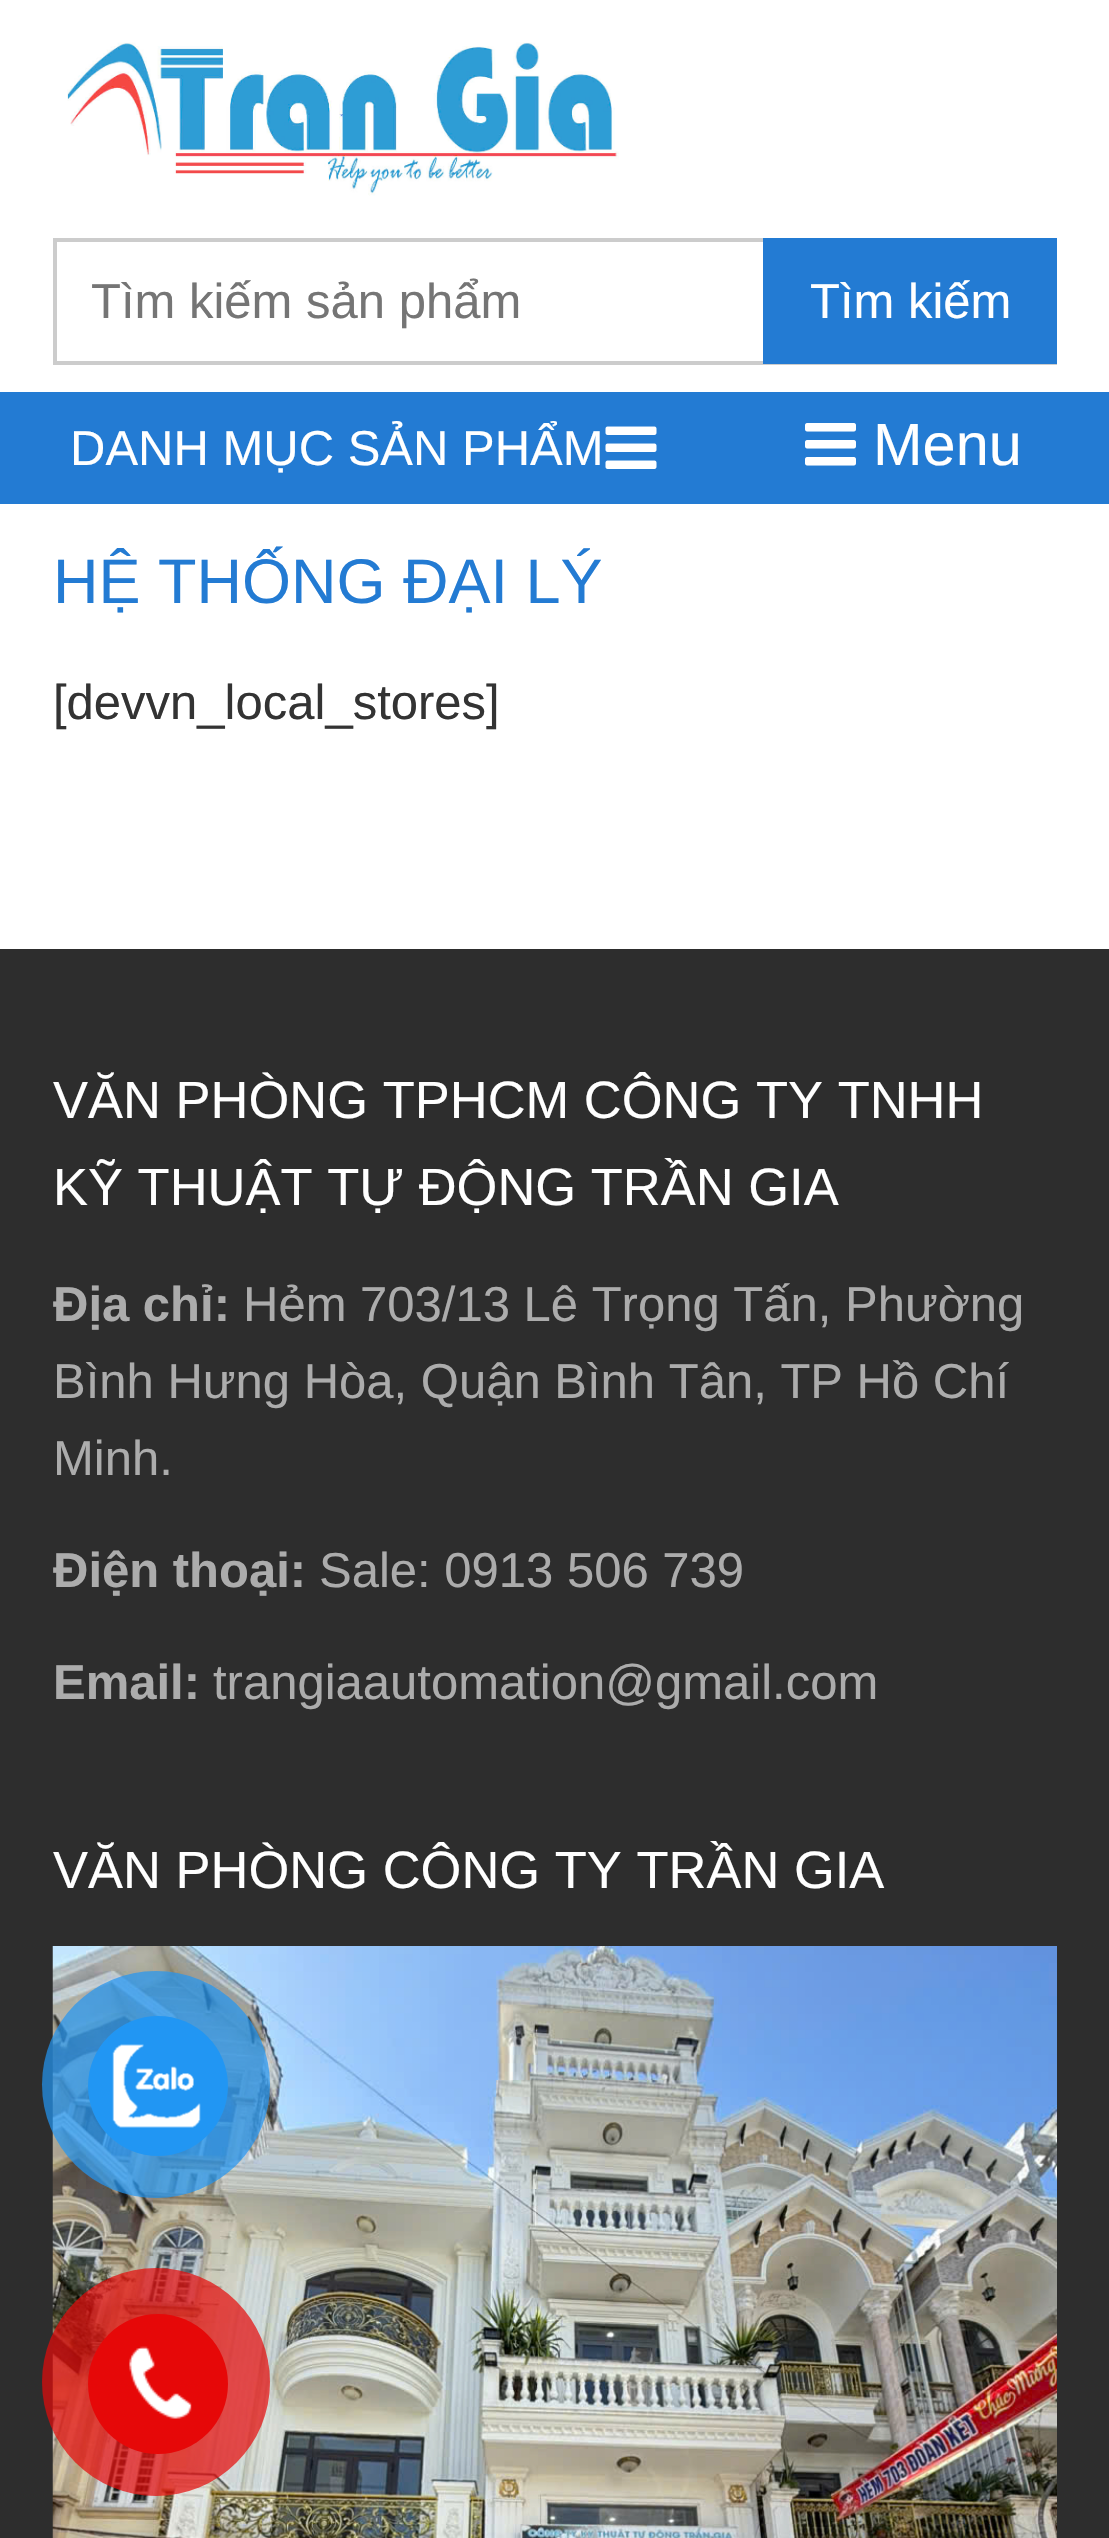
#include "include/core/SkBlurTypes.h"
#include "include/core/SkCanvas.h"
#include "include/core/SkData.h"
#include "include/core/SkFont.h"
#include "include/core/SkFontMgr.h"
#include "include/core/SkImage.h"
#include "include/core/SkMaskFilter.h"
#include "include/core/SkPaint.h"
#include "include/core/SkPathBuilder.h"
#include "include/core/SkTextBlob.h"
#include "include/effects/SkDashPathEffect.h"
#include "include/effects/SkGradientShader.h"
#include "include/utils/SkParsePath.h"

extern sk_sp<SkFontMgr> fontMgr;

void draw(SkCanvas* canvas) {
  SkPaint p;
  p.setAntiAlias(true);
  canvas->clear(SK_ColorWHITE);
  canvas->drawImageRect(SkImages::DeferredFromEncodedData(SkData::MakeFromFileName("images/1.png")), SkRect::MakeLTRB(67, 42, 619, 196), SkSamplingOptions());
  p.setColor(SkColorSetRGB(204, 204, 204));
  canvas->drawRect(SkRect::MakeLTRB(53, 238, 763, 242), p);
  canvas->drawRect(SkRect::MakeLTRB(53, 361, 1057, 365), p);
  canvas->drawRect(SkRect::MakeLTRB(53, 238, 57, 364), p);
  p.setColor(SkColorSetRGB(35, 123, 211));
  canvas->drawRect(SkRect::MakeLTRB(763, 238, 1057, 364), p);
  canvas->drawRect(SkRect::MakeLTRB(0, 392, 1109, 504), p);
  canvas->drawImageRect(SkImages::DeferredFromEncodedData(SkData::MakeFromFileName("images/2.png")), SkRect::MakeLTRB(605, 426, 657, 469), SkSamplingOptions());
  canvas->drawImageRect(SkImages::DeferredFromEncodedData(SkData::MakeFromFileName("images/3.png")), SkRect::MakeLTRB(805, 423, 856, 466), SkSamplingOptions());
  p.setColor(SkColorSetRGB(45, 45, 45));
  canvas->drawRect(SkRect::MakeLTRB(0, 949, 1109, 2538), p);
  canvas->drawImageRect(SkImages::DeferredFromEncodedData(SkData::MakeFromFileName("images/4.png")), SkRect::MakeLTRB(52, 1946, 1057, 2538), SkSamplingOptions());
  p.setColor(SkColorSetARGB(179, 33, 150, 243));
  canvas->drawRoundRect(SkRect::MakeLTRB(42, 1971, 270, 2198), 113.5f, 113.5f, p);
  p.setColor(SkColorSetRGB(33, 150, 243));
  canvas->drawCircle(158, 2086, 70, p);
  canvas->drawImageRect(SkImages::DeferredFromEncodedData(SkData::MakeFromFileName("images/5.png")), SkRect::MakeLTRB(112, 2044, 201, 2128), SkSamplingOptions());
  p.setColor(SkColorSetARGB(179, 230, 8, 8));
  canvas->drawCircle(156, 2382, 114, p);
  p.setColor(SkColorSetRGB(230, 8, 8));
  canvas->drawCircle(158, 2384, 70, p);
  canvas->drawImageRect(SkImages::DeferredFromEncodedData(SkData::MakeFromFileName("images/6.png")), SkRect::MakeLTRB(129, 2346, 192, 2419), SkSamplingOptions());
  SkFont font1(fontMgr->matchFamilyStyle("Liberation Sans", SkFontStyle::Normal()), 49);
  font1.setSubpixel(true);
  p.setColor(SkColorSetRGB(117, 117, 117));
  canvas->drawString("Tìm kiếm sản phẩm", 91, 318, font1, p);
  p.setColor(SK_ColorWHITE);
  canvas->drawString("Tìm kiếm", 810, 318, font1, p);
  canvas->drawString("DANH MỤC SẢN PHẨM", 70, 465, font1, p);
  SkFont font2(fontMgr->matchFamilyStyle("Liberation Sans", SkFontStyle::Normal()), 59.5f);
  font2.setSubpixel(true);
  canvas->drawString("Menu", 873, 465, font2, p);
  SkFont font3(fontMgr->matchFamilyStyle("Liberation Sans", SkFontStyle::Normal()), 63);
  font3.setSubpixel(true);
  p.setColor(SkColorSetRGB(35, 123, 211));
  canvas->drawString("HỆ THỐNG ĐẠI LÝ", 53, 603, font3, p);
  p.setColor(SkColorSetRGB(51, 51, 51));
  canvas->drawString("[devvn_local_stores]", 53, 719, font1, p);
  SkFont font4(fontMgr->matchFamilyStyle("Liberation Sans", SkFontStyle::Normal()), 52.5f);
  font4.setSubpixel(true);
  p.setColor(SK_ColorWHITE);
  canvas->drawString("VĂN PHÒNG TPHCM CÔNG TY TNHH", 53, 1118, font4, p);
  canvas->drawString("KỸ THUẬT TỰ ĐỘNG TRẦN GIA", 53, 1205, font4, p);
  canvas->save();
  canvas->clipRect(SkRect::MakeLTRB(53, 1054, 1057, 1754));
  SkFont font5(fontMgr->matchFamilyStyle("Liberation Sans", SkFontStyle::Bold()), 49);
  font5.setSubpixel(true);
  p.setColor(SkColorSetRGB(172, 172, 172));
  canvas->drawString("Địa chỉ:", 53, 1321, font5, p);
  canvas->restore();
  canvas->drawString("Hẻm 703/13 Lê Trọng Tấn, Phường", 243, 1321, font1, p);
  canvas->drawString("Bình Hưng Hòa, Quận Bình Tân, TP Hồ Chí", 53, 1398, font1, p);
  canvas->drawString("Minh.", 53, 1475, font1, p);
  canvas->save();
  canvas->clipRect(SkRect::MakeLTRB(53, 1054, 1057, 1754));
  canvas->drawString("Điện thoại:", 53, 1587, font5, p);
  canvas->restore();
  canvas->drawString("Sale: 0913 506 739", 319, 1587, font1, p);
  canvas->drawString("Email:", 53, 1699, font5, p);
  canvas->drawString("trangiaautomation@gmail.com", 213, 1699, font1, p);
  p.setColor(SK_ColorWHITE);
  canvas->drawString("VĂN PHÒNG CÔNG TY TRẦN GIA", 53, 1888, font4, p);
}
